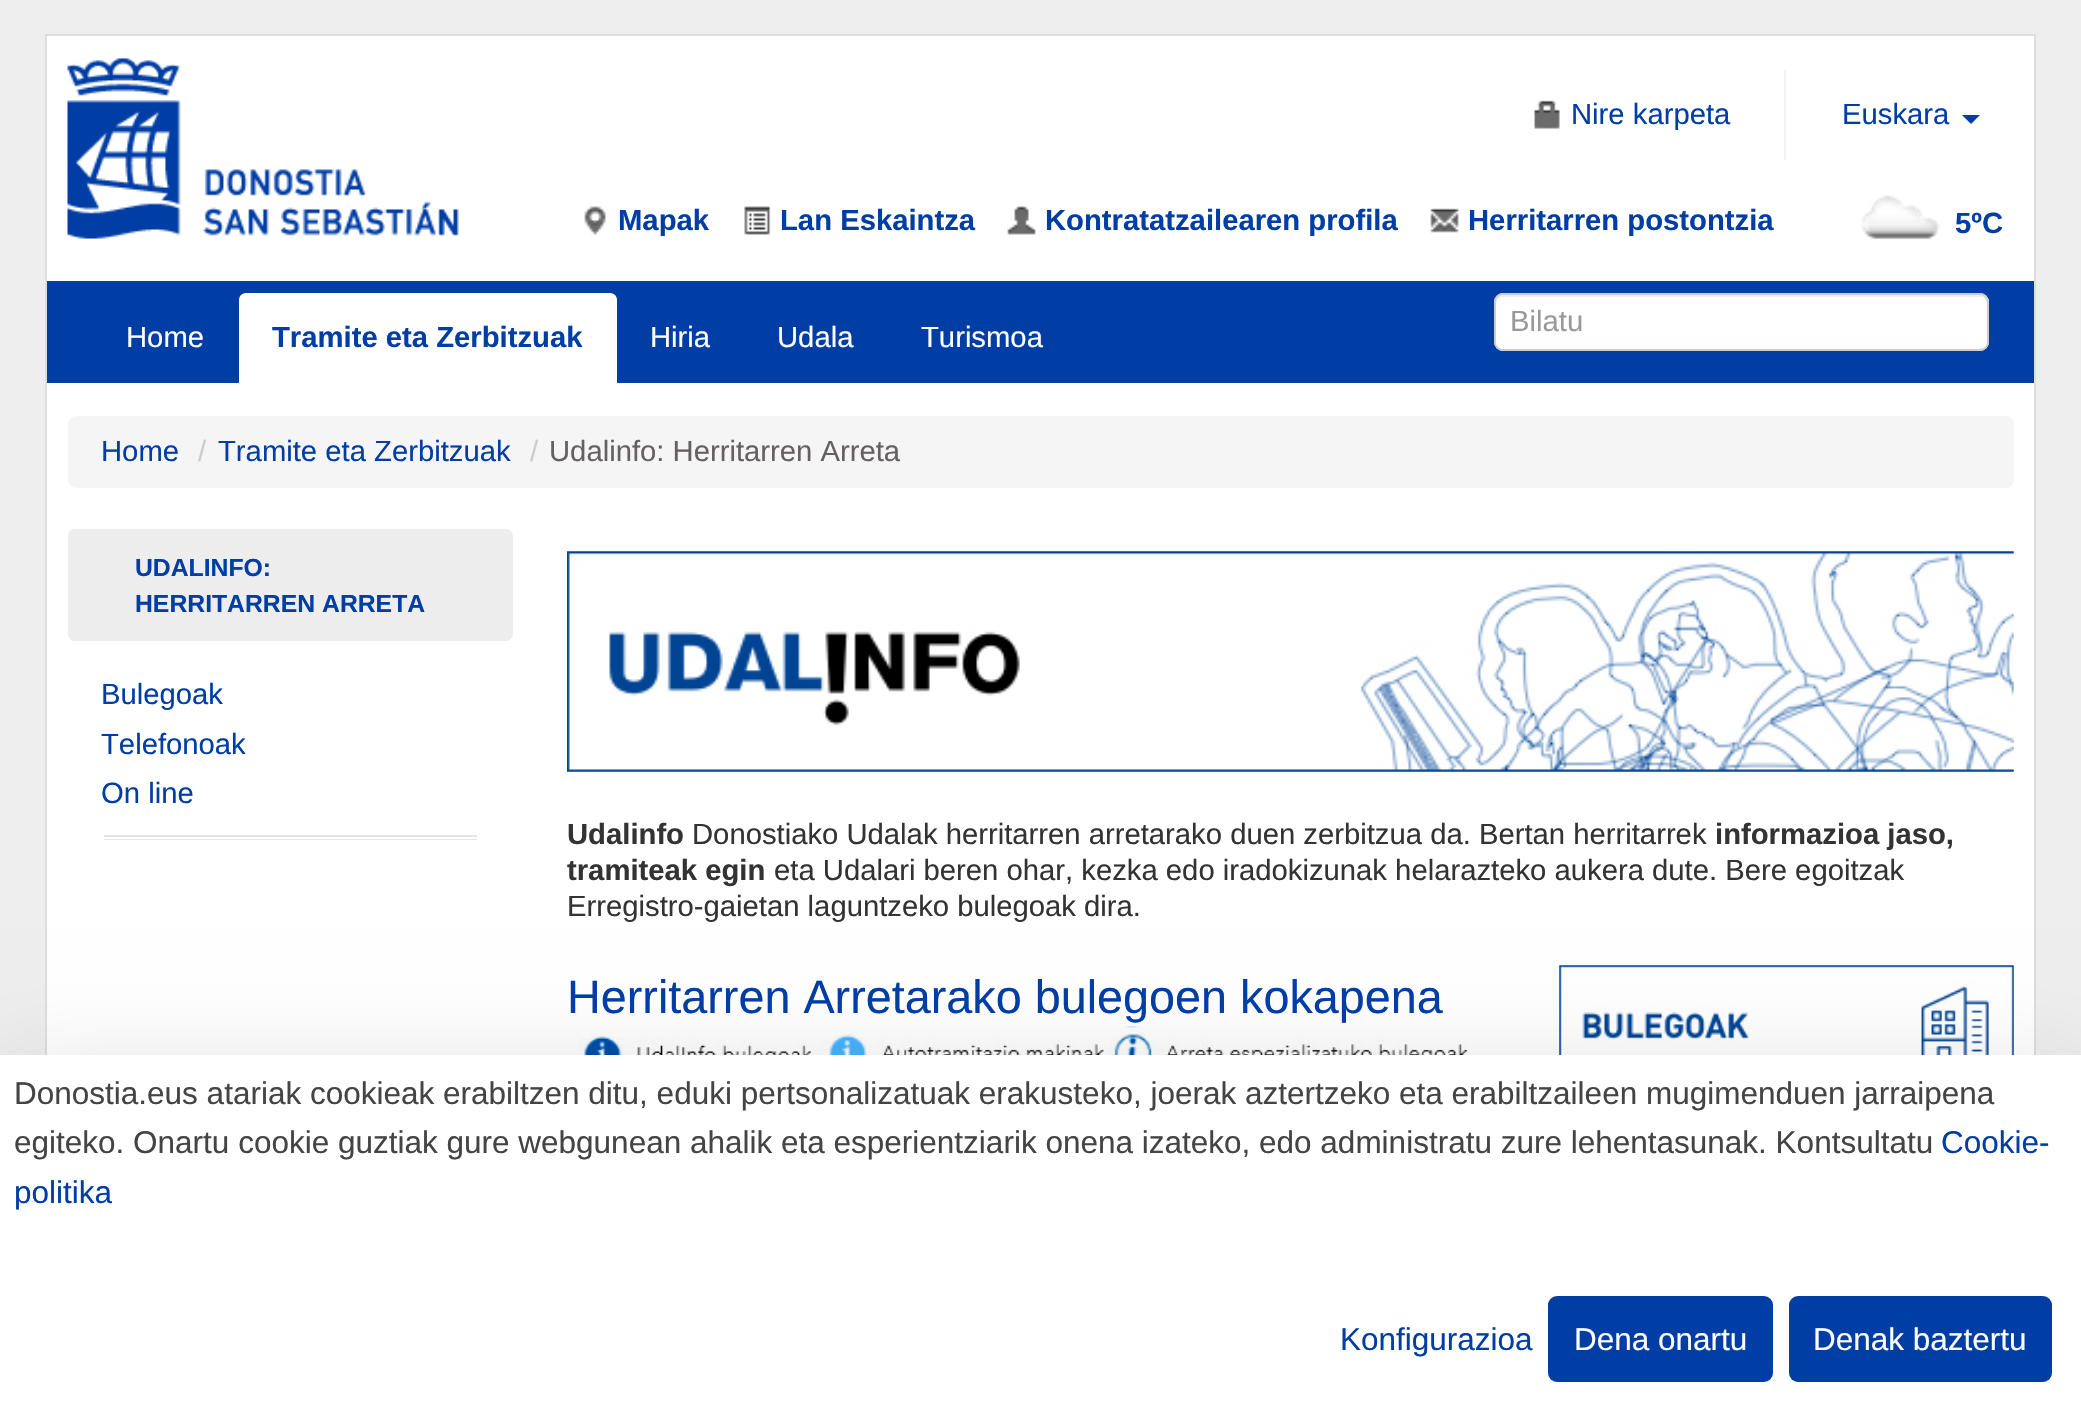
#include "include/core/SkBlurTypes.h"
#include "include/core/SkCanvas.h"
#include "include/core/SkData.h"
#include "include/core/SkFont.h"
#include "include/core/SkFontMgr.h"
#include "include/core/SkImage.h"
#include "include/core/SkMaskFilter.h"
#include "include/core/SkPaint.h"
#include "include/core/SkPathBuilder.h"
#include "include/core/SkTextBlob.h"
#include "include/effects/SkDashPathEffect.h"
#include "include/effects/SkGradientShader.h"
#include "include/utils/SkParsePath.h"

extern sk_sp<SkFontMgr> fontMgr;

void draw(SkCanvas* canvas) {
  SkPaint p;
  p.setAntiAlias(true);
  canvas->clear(SkColorSetRGB(238, 238, 238));
  p.setColor(SK_ColorWHITE);
  canvas->drawRect(SkRect::MakeLTRB(47, 36, 2034, 1055), p);
  p.setStyle(SkPaint::kStroke_Style);
  p.setStrokeWidth(2);
  p.setColor(SkColorSetRGB(221, 221, 221));
  canvas->drawRect(SkRect::MakeLTRB(46, 35, 2035, 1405), p);
  canvas->drawImageRect(SkImages::DeferredFromEncodedData(SkData::MakeFromFileName("images/1.png")), SkRect::MakeLTRB(67, 58, 459, 239), SkSamplingOptions());
  canvas->drawImageRect(SkImages::DeferredFromEncodedData(SkData::MakeFromFileName("images/2.png")), SkRect::MakeLTRB(1534, 100, 1560, 129), SkSamplingOptions());
  p.setStyle(SkPaint::kFill_Style);
  p.setColor(SkColorSetRGB(242, 242, 242));
  canvas->drawRect(SkRect::MakeLTRB(1784, 70, 1786, 160), p);
  p.setColor(SkColorSetRGB(0, 61, 165));
  canvas->drawPath(SkPathBuilder().moveTo(1962, 115).lineTo(1980, 115).lineTo(1971, 124).close().detach(), p);
  canvas->drawImageRect(SkImages::DeferredFromEncodedData(SkData::MakeFromFileName("images/3.png")), SkRect::MakeLTRB(584, 206, 606, 235), SkSamplingOptions());
  canvas->drawImageRect(SkImages::DeferredFromEncodedData(SkData::MakeFromFileName("images/4.png")), SkRect::MakeLTRB(744, 206, 771, 235), SkSamplingOptions());
  canvas->drawImageRect(SkImages::DeferredFromEncodedData(SkData::MakeFromFileName("images/5.png")), SkRect::MakeLTRB(1007, 206, 1036, 235), SkSamplingOptions());
  canvas->drawImageRect(SkImages::DeferredFromEncodedData(SkData::MakeFromFileName("images/6.png")), SkRect::MakeLTRB(1430, 208, 1459, 233), SkSamplingOptions());
  canvas->drawImageRect(SkImages::DeferredFromEncodedData(SkData::MakeFromFileName("images/7.png")), SkRect::MakeLTRB(1861, 195, 1940, 240), SkSamplingOptions());
  canvas->drawRect(SkRect::MakeLTRB(47, 281, 2034, 383), p);
  p.setColor(SK_ColorWHITE);
  canvas->drawRoundRect(SkRect::MakeLTRB(1494, 293, 1989, 351), 9, 9, p);
  p.setColor(SkColorSetRGB(236, 236, 236));
  canvas->drawPath(SkPathBuilder().moveTo(1503, 297).lineTo(1980, 297).cubicTo(1984, 297, 1987, 300, 1987, 304).lineTo(1987, 302).cubicTo(1987, 298, 1984, 295, 1980, 295).lineTo(1503, 295).cubicTo(1499, 295, 1496, 298, 1496, 302).lineTo(1496, 304).cubicTo(1496, 300, 1499, 297, 1503, 297).close().detach(), p);
  p.setStyle(SkPaint::kStroke_Style);
  p.setColor(SkColorSetRGB(204, 204, 204));
  canvas->drawRoundRect(SkRect::MakeLTRB(1495, 294, 1988, 350), 8, 8, p);
  p.setStyle(SkPaint::kFill_Style);
  p.setColor(SK_ColorWHITE);
  canvas->drawPath(SkPathBuilder().moveTo(246, 293).lineTo(610, 293).cubicTo(614, 293, 617, 296, 617, 300).lineTo(617, 383).lineTo(239, 383).lineTo(239, 300).cubicTo(239, 296, 242, 293, 246, 293).close().detach(), p);
  p.setColor(SkColorSetRGB(245, 245, 245));
  canvas->drawRoundRect(SkRect::MakeLTRB(68, 416, 2014, 488), 9, 9, p);
  p.setColor(SkColorSetRGB(237, 237, 237));
  canvas->drawRoundRect(SkRect::MakeLTRB(68, 529, 513, 641), 7, 7, p);
  p.setColor(SkColorSetRGB(229, 229, 229));
  canvas->drawRect(SkRect::MakeLTRB(104, 835, 477, 840), p);
  p.setColor(SK_ColorWHITE);
  canvas->drawRect(SkRect::MakeLTRB(104, 837, 477, 839), p);
  canvas->drawImageRect(SkImages::DeferredFromEncodedData(SkData::MakeFromFileName("images/8.png")), SkRect::MakeLTRB(567, 551, 2014, 772), SkSamplingOptions());
  canvas->drawImageRect(SkImages::DeferredFromEncodedData(SkData::MakeFromFileName("images/9.png")), SkRect::MakeLTRB(579, 1026, 1469, 1055), SkSamplingOptions());
  canvas->drawImageRect(SkImages::DeferredFromEncodedData(SkData::MakeFromFileName("images/10.png")), SkRect::MakeLTRB(1559, 965, 2014, 1055), SkSamplingOptions());
  p.setColor(SkColorSetARGB(46, 0, 0, 0));
  p.setMaskFilter(SkMaskFilter::MakeBlur(kNormal_SkBlurStyle, 54));
  canvas->drawRect(SkRect::MakeLTRB(0, 1091, 2081, 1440), p);
  p.setMaskFilter(nullptr);
  p.setColor(SK_ColorWHITE);
  canvas->drawRect(SkRect::MakeLTRB(0, 1055, 2081, 1404), p);
  p.setColor(SkColorSetRGB(0, 61, 165));
  canvas->drawRoundRect(SkRect::MakeLTRB(1548, 1296, 1773, 1382), 9, 9, p);
  canvas->drawRoundRect(SkRect::MakeLTRB(1789, 1296, 2052, 1382), 9, 9, p);
  SkFont font1(fontMgr->matchFamilyStyle("Liberation Sans", SkFontStyle::Normal()), 29.25f);
  font1.setSubpixel(true);
  canvas->drawString("Nire karpeta", 1571, 124, font1, p);
  canvas->drawString("Euskara", 1842, 124, font1, p);
  SkFont font2(fontMgr->matchFamilyStyle("Liberation Sans", SkFontStyle::Bold()), 29.25f);
  font2.setSubpixel(true);
  canvas->drawString("Mapak", 618, 230, font2, p);
  canvas->drawString("Lan Eskaintza", 780, 230, font2, p);
  canvas->drawString("Kontratatzailearen profila", 1045, 230, font2, p);
  canvas->drawString("Herritarren postontzia", 1468, 230, font2, p);
  canvas->drawString("5ºC", 1955, 233, font2, p);
  p.setColor(SkColorSetRGB(153, 153, 153));
  canvas->drawString("Bilatu", 1510, 331, font1, p);
  p.setColor(SK_ColorWHITE);
  canvas->drawString("Home", 126, 347, font1, p);
  p.setColor(SkColorSetRGB(0, 61, 165));
  canvas->drawString("Tramite eta Zerbitzuak", 272, 347, font2, p);
  p.setColor(SK_ColorWHITE);
  canvas->drawString("Hiria", 650, 347, font1, p);
  canvas->drawString("Udala", 777, 347, font1, p);
  canvas->drawString("Turismoa", 921, 347, font1, p);
  p.setColor(SkColorSetRGB(0, 61, 165));
  canvas->drawString("Home", 101, 461, font1, p);
  p.setColor(SkColorSetRGB(204, 204, 204));
  canvas->drawString("/", 198, 461, font1, p);
  p.setColor(SkColorSetRGB(0, 61, 165));
  canvas->drawString("Tramite eta Zerbitzuak", 218, 461, font1, p);
  p.setColor(SkColorSetRGB(204, 204, 204));
  canvas->drawString("/", 530, 461, font1, p);
  p.setColor(SkColorSetRGB(101, 97, 97));
  canvas->drawString("Udalinfo: Herritarren Arreta", 549, 461, font1, p);
  SkFont font3(fontMgr->matchFamilyStyle("Liberation Sans", SkFontStyle::Bold()), 24.75f);
  font3.setSubpixel(true);
  p.setColor(SkColorSetRGB(0, 61, 165));
  canvas->drawString("UDALINFO:", 135, 576, font3, p);
  canvas->drawString("HERRITARREN ARRETA", 135, 612, font3, p);
  canvas->drawString("Bulegoak", 101, 704, font1, p);
  canvas->drawString("Telefonoak", 101, 754, font1, p);
  canvas->drawString("On line", 101, 803, font1, p);
  p.setColor(SkColorSetRGB(51, 51, 51));
  canvas->drawString("Udalinfo", 567, 844, font2, p);
  canvas->drawString("Donostiako Udalak herritarren arretarako duen zerbitzua da. Bertan herritarrek", 692, 844, font1, p);
  canvas->drawString("informazioa jaso,", 1715, 844, font2, p);
  canvas->drawString("tramiteak egin", 567, 880, font2, p);
  canvas->drawString("eta Udalari beren ohar, kezka edo iradokizunak helarazteko aukera dute. Bere egoitzak", 774, 880, font1, p);
  canvas->drawString("Erregistro-gaietan laguntzeko bulegoak dira.", 567, 916, font1, p);
  SkFont font4(fontMgr->matchFamilyStyle("Liberation Sans", SkFontStyle::Normal()), 46.75f);
  font4.setSubpixel(true);
  p.setColor(SkColorSetRGB(0, 61, 165));
  canvas->drawString("Herritarren Arretarako bulegoen kokapena", 567, 1013, font4, p);
  SkFont font5(fontMgr->matchFamilyStyle("Liberation Sans", SkFontStyle::Normal()), 31.5f);
  font5.setSubpixel(true);
  p.setColor(SkColorSetRGB(68, 68, 68));
  canvas->drawString("Donostia.eus atariak cookieak erabiltzen ditu, eduki pertsonalizatuak erakusteko, joerak aztertzeko eta erabiltzaileen mugimenduen jarraipena", 14, 1104, font5, p);
  canvas->drawString("egiteko. Onartu cookie guztiak gure webgunean ahalik eta esperientziarik onena izateko, edo administratu zure lehentasunak. Kontsultatu", 14, 1153, font5, p);
  p.setColor(SkColorSetRGB(0, 61, 165));
  canvas->drawString("Cookie-", 1941, 1153, font5, p);
  canvas->drawString("politika", 14, 1203, font5, p);
  canvas->drawString("Konfigurazioa", 1340, 1350, font5, p);
  p.setColor(SK_ColorWHITE);
  canvas->drawString("Dena onartu", 1574, 1350, font5, p);
  canvas->drawString("Denak baztertu", 1813, 1350, font5, p);
}
